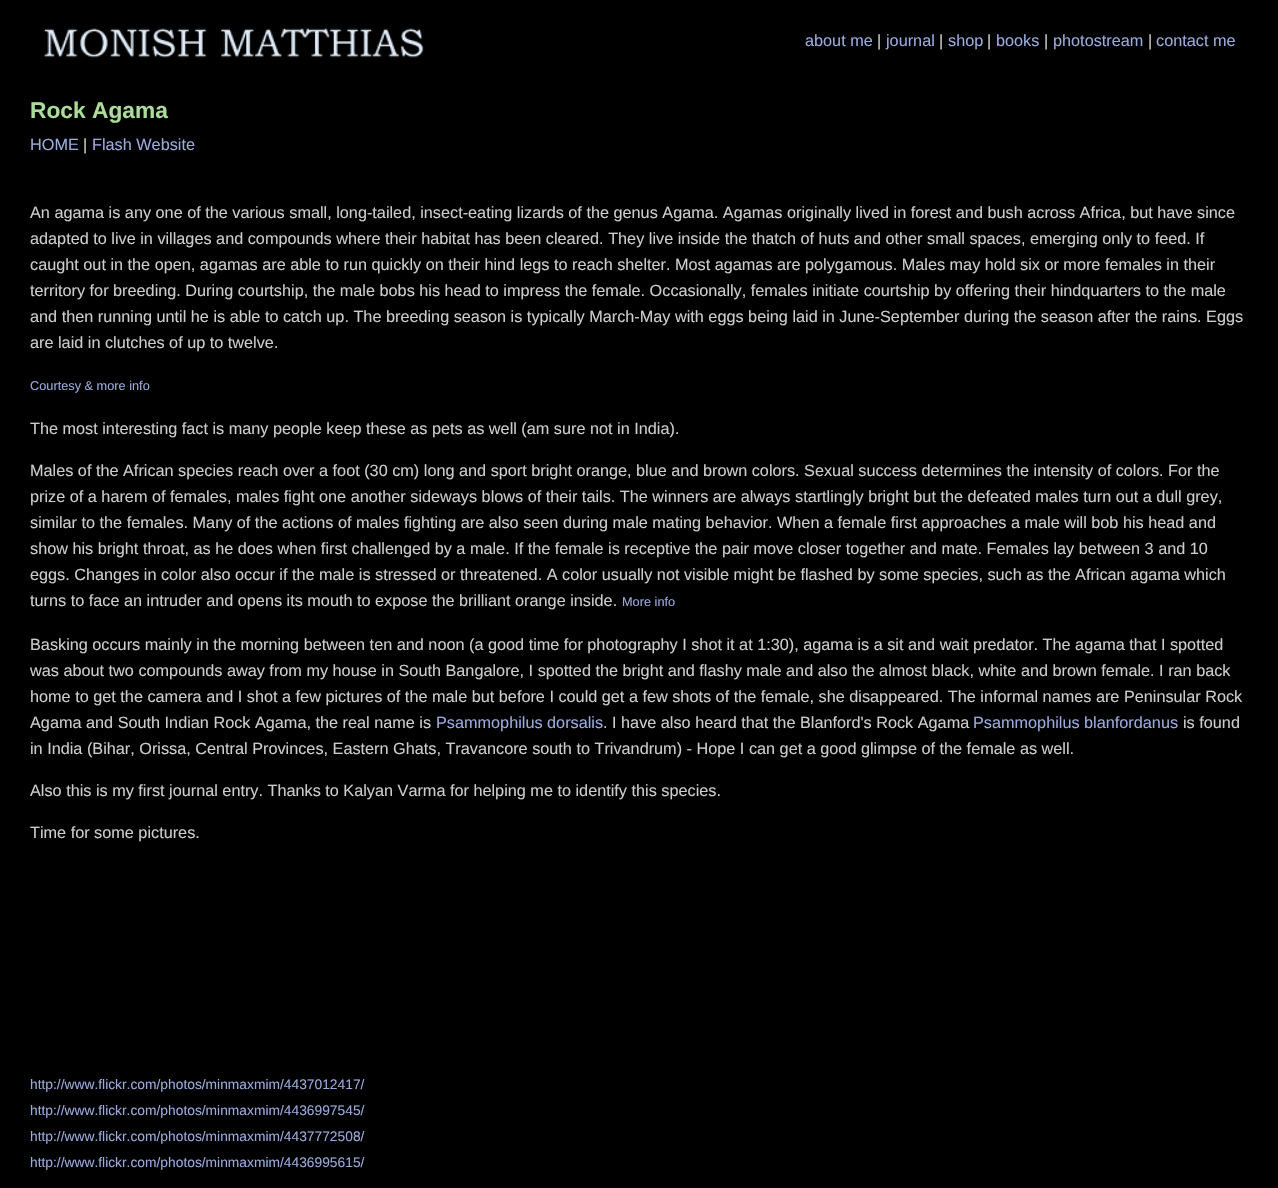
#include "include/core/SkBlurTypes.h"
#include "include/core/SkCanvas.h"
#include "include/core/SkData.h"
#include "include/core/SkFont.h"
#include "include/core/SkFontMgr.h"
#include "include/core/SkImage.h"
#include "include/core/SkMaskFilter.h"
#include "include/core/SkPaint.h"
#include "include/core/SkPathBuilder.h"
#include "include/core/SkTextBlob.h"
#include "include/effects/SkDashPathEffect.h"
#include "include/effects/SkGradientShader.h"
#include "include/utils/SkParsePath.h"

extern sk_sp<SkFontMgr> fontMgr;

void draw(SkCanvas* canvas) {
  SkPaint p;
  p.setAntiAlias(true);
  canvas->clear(SK_ColorBLACK);
  canvas->drawImageRect(SkImages::DeferredFromEncodedData(SkData::MakeFromFileName("images/1.png")), SkRect::MakeLTRB(43, 28, 424, 58), SkSamplingOptions());
  SkFont font1(fontMgr->matchFamilyStyle("Liberation Sans", SkFontStyle::Normal()), 16.25f);
  font1.setSubpixel(true);
  p.setColor(SkColorSetRGB(153, 170, 221));
  canvas->drawString("about me", 805, 46, font1, p);
  p.setColor(SkColorSetRGB(204, 204, 204));
  canvas->drawString("|", 877, 46, font1, p);
  p.setColor(SkColorSetRGB(153, 170, 221));
  canvas->drawString("journal", 886, 46, font1, p);
  p.setColor(SkColorSetRGB(204, 204, 204));
  canvas->drawString("|", 939, 46, font1, p);
  p.setColor(SkColorSetRGB(153, 170, 221));
  canvas->drawString("shop", 948, 46, font1, p);
  p.setColor(SkColorSetRGB(204, 204, 204));
  canvas->drawString("|", 987, 46, font1, p);
  p.setColor(SkColorSetRGB(153, 170, 221));
  canvas->drawString("books", 996, 46, font1, p);
  p.setColor(SkColorSetRGB(204, 204, 204));
  canvas->drawString("|", 1044, 46, font1, p);
  p.setColor(SkColorSetRGB(153, 170, 221));
  canvas->drawString("photostream", 1053, 46, font1, p);
  p.setColor(SkColorSetRGB(204, 204, 204));
  canvas->drawString("|", 1148, 46, font1, p);
  p.setColor(SkColorSetRGB(153, 170, 221));
  canvas->drawString("contact me", 1156, 46, font1, p);
  SkFont font2(fontMgr->matchFamilyStyle("Liberation Sans", SkFontStyle::Bold()), 22.75f);
  font2.setSubpixel(true);
  p.setColor(SkColorSetRGB(170, 221, 153));
  canvas->drawString("Rock Agama", 30, 118, font2, p);
  p.setColor(SkColorSetRGB(153, 170, 221));
  canvas->drawString("HOME", 30, 150, font1, p);
  p.setColor(SkColorSetRGB(204, 204, 204));
  canvas->drawString("|", 83, 150, font1, p);
  p.setColor(SkColorSetRGB(153, 170, 221));
  canvas->drawString("Flash Website", 92, 150, font1, p);
  p.setColor(SkColorSetRGB(204, 204, 204));
  canvas->drawString("An agama is any one of the various small, long-tailed, insect-eating lizards of the genus Agama. Agamas originally lived in forest and bush across Africa, but have since", 30, 218, font1, p);
  canvas->drawString("adapted to live in villages and compounds where their habitat has been cleared. They live inside the thatch of huts and other small spaces, emerging only to feed. If", 30, 244, font1, p);
  canvas->drawString("caught out in the open, agamas are able to run quickly on their hind legs to reach shelter. Most agamas are polygamous. Males may hold six or more females in their", 30, 270, font1, p);
  canvas->drawString("territory for breeding. During courtship, the male bobs his head to impress the female. Occasionally, females initiate courtship by offering their hindquarters to the male", 30, 296, font1, p);
  canvas->drawString("and then running until he is able to catch up. The breeding season is typically March-May with eggs being laid in June-September during the season after the rains. Eggs", 30, 322, font1, p);
  canvas->drawString("are laid in clutches of up to twelve.", 30, 348, font1, p);
  SkFont font3(fontMgr->matchFamilyStyle("Liberation Sans", SkFontStyle::Normal()), 12.75f);
  font3.setSubpixel(true);
  p.setColor(SkColorSetRGB(153, 170, 221));
  canvas->drawString("Courtesy & more info", 30, 390, font3, p);
  p.setColor(SkColorSetRGB(204, 204, 204));
  canvas->drawString("The most interesting fact is many people keep these as pets as well (am sure not in India).", 30, 434, font1, p);
  canvas->drawString("Males of the African species reach over a foot (30 cm) long and sport bright orange, blue and brown colors. Sexual success determines the intensity of colors. For the", 30, 476, font1, p);
  canvas->drawString("prize of a harem of females, males fight one another sideways blows of their tails. The winners are always startlingly bright but the defeated males turn out a dull grey,", 30, 502, font1, p);
  canvas->drawString("similar to the females. Many of the actions of males fighting are also seen during male mating behavior. When a female first approaches a male will bob his head and", 30, 528, font1, p);
  canvas->drawString("show his bright throat, as he does when first challenged by a male. If the female is receptive the pair move closer together and mate. Females lay between 3 and 10", 30, 554, font1, p);
  canvas->drawString("eggs. Changes in color also occur if the male is stressed or threatened. A color usually not visible might be flashed by some species, such as the African agama which", 30, 580, font1, p);
  canvas->drawString("turns to face an intruder and opens its mouth to expose the brilliant orange inside.", 30, 606, font1, p);
  p.setColor(SkColorSetRGB(153, 170, 221));
  canvas->drawString("More info", 622, 606, font3, p);
  p.setColor(SkColorSetRGB(204, 204, 204));
  canvas->drawString("Basking occurs mainly in the morning between ten and noon (a good time for photography I shot it at 1:30), agama is a sit and wait predator. The agama that I spotted", 30, 650, font1, p);
  canvas->drawString("was about two compounds away from my house in South Bangalore, I spotted the bright and flashy male and also the almost black, white and brown female. I ran back", 30, 676, font1, p);
  canvas->drawString("home to get the camera and I shot a few pictures of the male but before I could get a few shots of the female, she disappeared. The informal names are Peninsular Rock", 30, 702, font1, p);
  canvas->drawString("Agama and South Indian Rock Agama, the real name is", 30, 728, font1, p);
  p.setColor(SkColorSetRGB(153, 170, 221));
  canvas->drawString("Psammophilus dorsalis", 436, 728, font1, p);
  p.setColor(SkColorSetRGB(204, 204, 204));
  canvas->drawString(". I have also heard that the Blanford's Rock Agama", 603, 728, font1, p);
  p.setColor(SkColorSetRGB(153, 170, 221));
  canvas->drawString("Psammophilus blanfordanus", 973, 728, font1, p);
  p.setColor(SkColorSetRGB(204, 204, 204));
  canvas->drawString("is found", 1183, 728, font1, p);
  canvas->drawString("in India (Bihar, Orissa, Central Provinces, Eastern Ghats, Travancore south to Trivandrum) - Hope I can get a good glimpse of the female as well.", 30, 754, font1, p);
  canvas->drawString("Also this is my first journal entry. Thanks to Kalyan Varma for helping me to identify this species.", 30, 796, font1, p);
  canvas->drawString("Time for some pictures.", 30, 838, font1, p);
  SkFont font4(fontMgr->matchFamilyStyle("Liberation Sans", SkFontStyle::Normal()), 13.8f);
  font4.setSubpixel(true);
  p.setColor(SkColorSetRGB(153, 170, 221));
  canvas->drawString("http://www.flickr.com/photos/minmaxmim/4437012417/", 30, 1089, font4, p);
  canvas->drawString("http://www.flickr.com/photos/minmaxmim/4436997545/", 30, 1115, font4, p);
  canvas->drawString("http://www.flickr.com/photos/minmaxmim/4437772508/", 30, 1141, font4, p);
  canvas->drawString("http://www.flickr.com/photos/minmaxmim/4436995615/", 30, 1167, font4, p);
}
